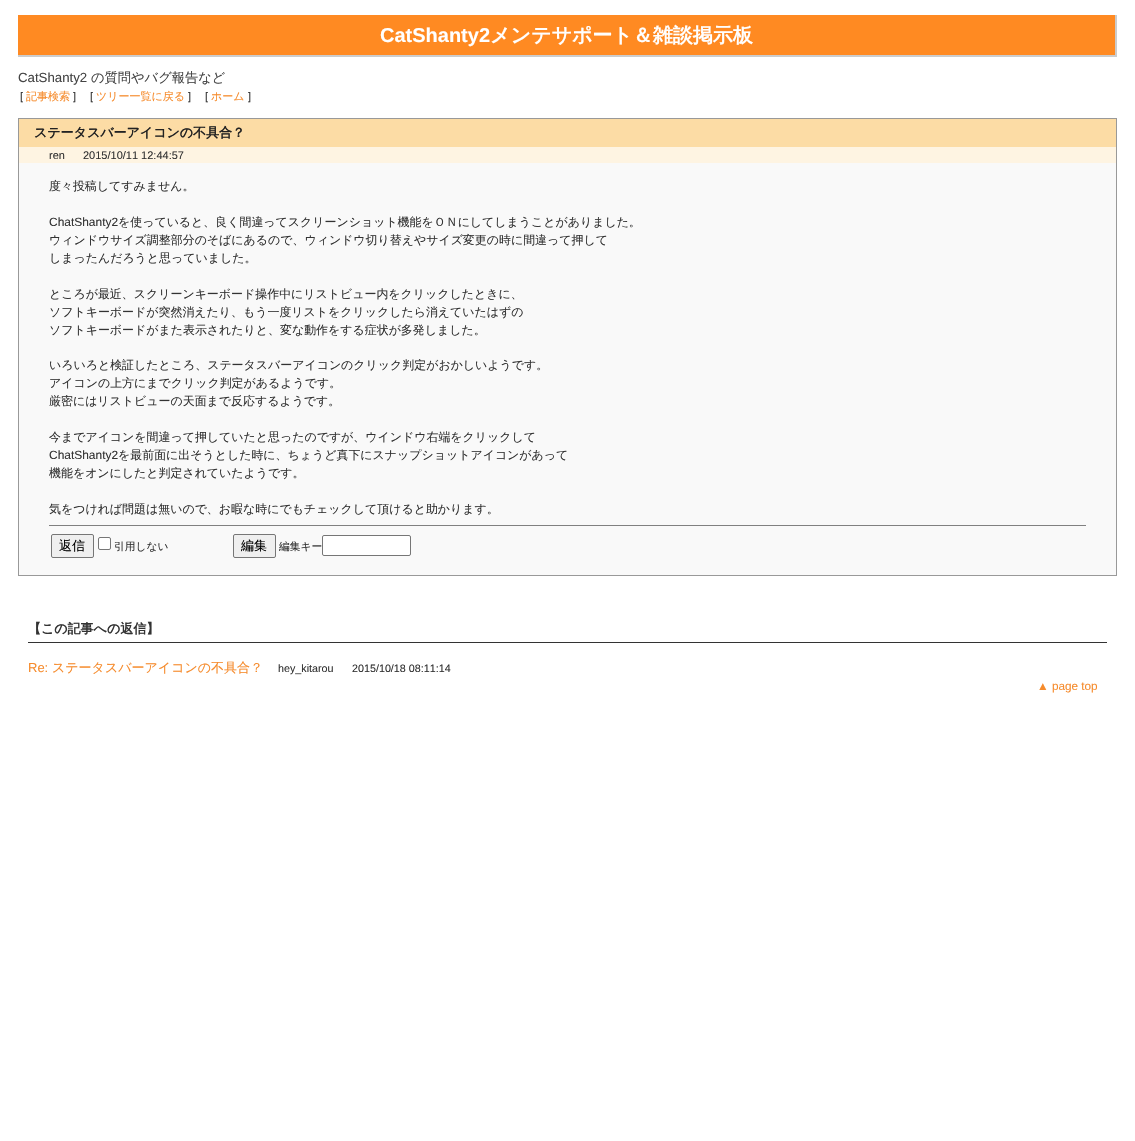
#include "include/core/SkBlurTypes.h"
#include "include/core/SkCanvas.h"
#include "include/core/SkData.h"
#include "include/core/SkFont.h"
#include "include/core/SkFontMgr.h"
#include "include/core/SkImage.h"
#include "include/core/SkMaskFilter.h"
#include "include/core/SkPaint.h"
#include "include/core/SkPathBuilder.h"
#include "include/core/SkTextBlob.h"
#include "include/effects/SkDashPathEffect.h"
#include "include/effects/SkGradientShader.h"
#include "include/utils/SkParsePath.h"

extern sk_sp<SkFontMgr> fontMgr;

void draw(SkCanvas* canvas) {
  SkPaint p;
  p.setAntiAlias(true);
  canvas->clear(SK_ColorWHITE);
  p.setColor(SkColorSetRGB(255, 138, 34));
  canvas->drawRect(SkRect::MakeLTRB(18, 15, 1115, 55), p);
  p.setColor(SkColorSetRGB(204, 204, 204));
  canvas->drawRect(SkRect::MakeLTRB(1115, 15, 1117, 57), p);
  canvas->drawRect(SkRect::MakeLTRB(18, 55, 1117, 57), p);
  p.setColor(SkColorSetRGB(249, 249, 249));
  canvas->drawRect(SkRect::MakeLTRB(19, 163, 1116, 575), p);
  p.setStyle(SkPaint::kStroke_Style);
  p.setStrokeWidth(1);
  p.setColor(SkColorSetRGB(153, 153, 153));
  canvas->drawRect(SkRect::MakeLTRB(18.5f, 118.5f, 1116.5f, 575.5f), p);
  p.setStyle(SkPaint::kFill_Style);
  p.setColor(SkColorSetRGB(252, 220, 165));
  canvas->drawRect(SkRect::MakeLTRB(19, 119, 1116, 147), p);
  p.setColor(SkColorSetRGB(254, 244, 226));
  canvas->drawRect(SkRect::MakeLTRB(19, 147, 1116, 163), p);
  p.setColor(SkColorSetRGB(128, 128, 128));
  canvas->drawRect(SkRect::MakeLTRB(49, 525, 1086, 526), p);
  p.setColor(SkColorSetRGB(239, 239, 239));
  canvas->drawRoundRect(SkRect::MakeLTRB(51.5f, 534.5f, 93.5f, 557.5f), 1.5f, 1.5f, p);
  p.setStyle(SkPaint::kStroke_Style);
  p.setColor(SkColorSetRGB(118, 118, 118));
  canvas->drawRoundRect(SkRect::MakeLTRB(51.5f, 534.5f, 93.5f, 557.5f), 1.5f, 1.5f, p);
  p.setStyle(SkPaint::kFill_Style);
  p.setColor(SK_ColorWHITE);
  canvas->drawRoundRect(SkRect::MakeLTRB(98.5f, 537.5f, 110.5f, 549.5f), 1.5f, 1.5f, p);
  p.setStyle(SkPaint::kStroke_Style);
  p.setColor(SkColorSetRGB(118, 118, 118));
  canvas->drawRoundRect(SkRect::MakeLTRB(98.5f, 537.5f, 110.5f, 549.5f), 1.5f, 1.5f, p);
  p.setStyle(SkPaint::kFill_Style);
  p.setColor(SkColorSetRGB(239, 239, 239));
  canvas->drawRoundRect(SkRect::MakeLTRB(233.5f, 534.5f, 275.5f, 557.5f), 1.5f, 1.5f, p);
  p.setStyle(SkPaint::kStroke_Style);
  p.setColor(SkColorSetRGB(118, 118, 118));
  canvas->drawRoundRect(SkRect::MakeLTRB(233.5f, 534.5f, 275.5f, 557.5f), 1.5f, 1.5f, p);
  p.setStyle(SkPaint::kFill_Style);
  p.setColor(SK_ColorWHITE);
  canvas->drawRoundRect(SkRect::MakeLTRB(322.5f, 535.5f, 410.5f, 555.5f), 1.5f, 1.5f, p);
  p.setStyle(SkPaint::kStroke_Style);
  p.setColor(SkColorSetRGB(118, 118, 118));
  canvas->drawRoundRect(SkRect::MakeLTRB(322.5f, 535.5f, 410.5f, 555.5f), 1.5f, 1.5f, p);
  p.setStyle(SkPaint::kFill_Style);
  p.setColor(SkColorSetRGB(51, 51, 51));
  canvas->drawRect(SkRect::MakeLTRB(28, 642, 1107, 643), p);
  SkFont font1(fontMgr->matchFamilyStyle("Liberation Sans", SkFontStyle::Bold()), 20);
  font1.setSubpixel(true);
  p.setColor(SK_ColorWHITE);
  canvas->drawString("CatShanty2", 380, 42, font1, p);
  SkFont font2(fontMgr->matchFamilyStyle("WenQuanYi Zen Hei", SkFontStyle::Bold()), 20);
  font2.setSubpixel(true);
  canvas->drawString("メンテサポート＆雑談掲示板", 490, 42, font2, p);
  SkFont font3(fontMgr->matchFamilyStyle("Liberation Sans", SkFontStyle::Normal()), 13.25f);
  font3.setSubpixel(true);
  p.setColor(SkColorSetRGB(68, 68, 68));
  canvas->drawString("CatShanty2", 18, 82, font3, p);
  SkFont font4(fontMgr->matchFamilyStyle("WenQuanYi Zen Hei", SkFontStyle(500, SkFontStyle::kNormal_Width, SkFontStyle::kUpright_Slant)), 13.25f);
  font4.setSubpixel(true);
  canvas->drawString("の質問やバグ報告など", 91, 82, font4, p);
  SkFont font5(fontMgr->matchFamilyStyle("Liberation Sans", SkFontStyle::Normal()), 11);
  font5.setSubpixel(true);
  p.setColor(SkColorSetRGB(51, 51, 51));
  canvas->drawString("[", 20, 100, font5, p);
  SkFont font6(fontMgr->matchFamilyStyle("WenQuanYi Zen Hei", SkFontStyle(500, SkFontStyle::kNormal_Width, SkFontStyle::kUpright_Slant)), 11);
  font6.setSubpixel(true);
  p.setColor(SkColorSetRGB(246, 139, 44));
  canvas->drawString("記事検索", 26, 100, font6, p);
  p.setColor(SkColorSetRGB(51, 51, 51));
  canvas->drawString("]", 73, 100, font5, p);
  canvas->drawString("[", 90, 100, font5, p);
  p.setColor(SkColorSetRGB(246, 139, 44));
  canvas->drawString("ツリー一覧に戻る", 96, 100, font6, p);
  p.setColor(SkColorSetRGB(51, 51, 51));
  canvas->drawString("]", 188, 100, font5, p);
  canvas->drawString("[", 205, 100, font5, p);
  p.setColor(SkColorSetRGB(246, 139, 44));
  canvas->drawString("ホーム", 211, 100, font6, p);
  p.setColor(SkColorSetRGB(51, 51, 51));
  canvas->drawString("]", 248, 100, font5, p);
  SkFont font7(fontMgr->matchFamilyStyle("WenQuanYi Zen Hei", SkFontStyle::Bold()), 13);
  font7.setSubpixel(true);
  p.setColor(SkColorSetRGB(34, 34, 34));
  canvas->drawString("ステータスバーアイコンの不具合？", 34, 137, font7, p);
  p.setColor(SkColorSetRGB(51, 51, 51));
  canvas->drawString("ren", 49, 159, font5, p);
  canvas->drawString("2015/10/11 12:44:57", 83, 159, font5, p);
  SkFont font8(fontMgr->matchFamilyStyle("WenQuanYi Zen Hei", SkFontStyle(500, SkFontStyle::kNormal_Width, SkFontStyle::kUpright_Slant)), 11.95f);
  font8.setSubpixel(true);
  canvas->drawString("度々投稿してすみません。", 49, 190, font8, p);
  SkFont font9(fontMgr->matchFamilyStyle("Liberation Sans", SkFontStyle::Normal()), 11.95f);
  font9.setSubpixel(true);
  canvas->drawString("ChatShanty2", 49, 226, font9, p);
  canvas->drawString("を使っていると、良く間違ってスクリーンショット機能をＯＮにしてしまうことがありました。", 118, 226, font8, p);
  canvas->drawString("ウィンドウサイズ調整部分のそばにあるので、ウィンドウ切り替えやサイズ変更の時に間違って押して", 49, 244, font8, p);
  canvas->drawString("しまったんだろうと思っていました。", 49, 262, font8, p);
  canvas->drawString("ところが最近、スクリーンキーボード操作中にリストビュー内をクリックしたときに、", 49, 298, font8, p);
  canvas->drawString("ソフトキーボードが突然消えたり、もう一度リストをクリックしたら消えていたはずの", 49, 316, font8, p);
  canvas->drawString("ソフトキーボードがまた表示されたりと、変な動作をする症状が多発しました。", 49, 334, font8, p);
  canvas->drawString("いろいろと検証したところ、ステータスバーアイコンのクリック判定がおかしいようです。", 49, 369, font8, p);
  canvas->drawString("アイコンの上方にまでクリック判定があるようです。", 49, 387, font8, p);
  canvas->drawString("厳密にはリストビューの天面まで反応するようです。", 49, 405, font8, p);
  canvas->drawString("今までアイコンを間違って押していたと思ったのですが、ウインドウ右端をクリックして", 49, 441, font8, p);
  canvas->drawString("ChatShanty2", 49, 459, font9, p);
  canvas->drawString("を最前面に出そうとした時に、ちょうど真下にスナップショットアイコンがあって", 118, 459, font8, p);
  canvas->drawString("機能をオンにしたと判定されていたようです。", 49, 477, font8, p);
  canvas->drawString("気をつければ問題は無いので、お暇な時にでもチェックして頂けると助かります。", 49, 513, font8, p);
  SkFont font10(fontMgr->matchFamilyStyle("WenQuanYi Zen Hei", SkFontStyle(500, SkFontStyle::kNormal_Width, SkFontStyle::kUpright_Slant)), 13);
  font10.setSubpixel(true);
  p.setColor(SK_ColorBLACK);
  canvas->drawString("返信", 59, 550, font10, p);
  SkFont font11(fontMgr->matchFamilyStyle("WenQuanYi Zen Hei", SkFontStyle(500, SkFontStyle::kNormal_Width, SkFontStyle::kUpright_Slant)), 10.75f);
  font11.setSubpixel(true);
  p.setColor(SkColorSetRGB(51, 51, 51));
  canvas->drawString("引用しない", 114, 550, font11, p);
  p.setColor(SK_ColorBLACK);
  canvas->drawString("編集", 241, 550, font10, p);
  p.setColor(SkColorSetRGB(51, 51, 51));
  canvas->drawString("編集キー", 279, 550, font11, p);
  canvas->drawString("【この記事への返信】", 28, 633, font7, p);
  SkFont font12(fontMgr->matchFamilyStyle("Liberation Sans", SkFontStyle::Normal()), 13);
  font12.setSubpixel(true);
  p.setColor(SkColorSetRGB(246, 139, 44));
  canvas->drawString("Re:", 28, 672, font12, p);
  canvas->drawString("ステータスバーアイコンの不具合？", 52, 672, font10, p);
  SkFont font13(fontMgr->matchFamilyStyle("Liberation Sans", SkFontStyle::Normal()), 10.75f);
  font13.setSubpixel(true);
  p.setColor(SkColorSetRGB(51, 51, 51));
  canvas->drawString("hey_kitarou", 278, 672, font13, p);
  canvas->drawString("2015/10/18 08:11:14", 352, 672, font13, p);
  SkFont font14(fontMgr->matchFamilyStyle("Liberation Sans", SkFontStyle::Normal()), 11.75f);
  font14.setSubpixel(true);
  p.setColor(SkColorSetRGB(246, 139, 44));
  canvas->drawString("▲ page top", 1037, 690, font14, p);
}
